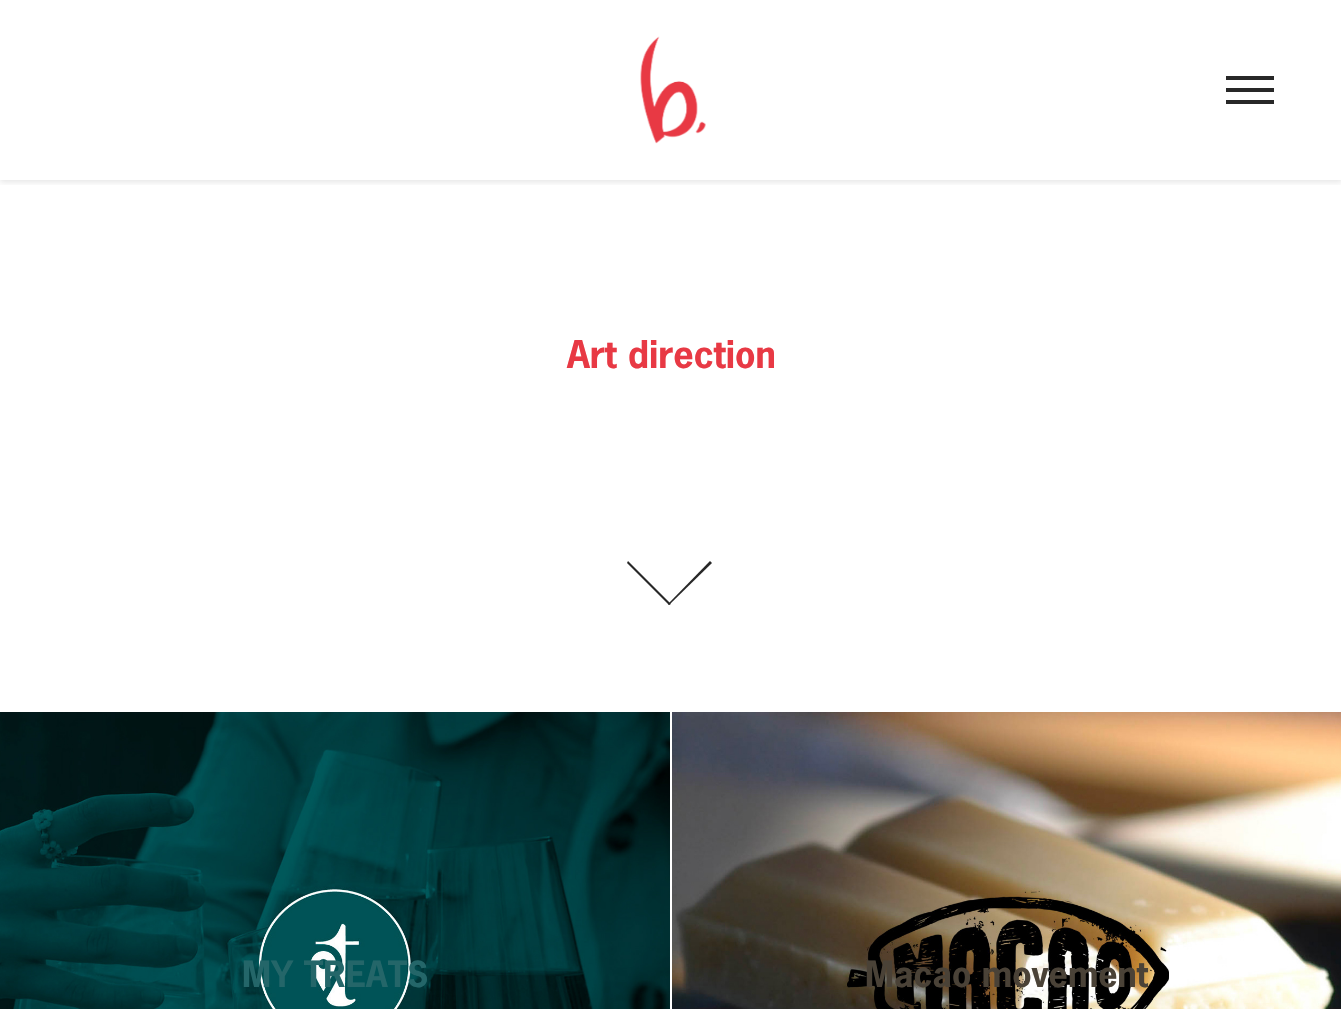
#include "include/core/SkBlurTypes.h"
#include "include/core/SkCanvas.h"
#include "include/core/SkData.h"
#include "include/core/SkFont.h"
#include "include/core/SkFontMgr.h"
#include "include/core/SkImage.h"
#include "include/core/SkMaskFilter.h"
#include "include/core/SkPaint.h"
#include "include/core/SkPathBuilder.h"
#include "include/core/SkTextBlob.h"
#include "include/effects/SkDashPathEffect.h"
#include "include/effects/SkGradientShader.h"
#include "include/utils/SkParsePath.h"

extern sk_sp<SkFontMgr> fontMgr;

void draw(SkCanvas* canvas) {
  SkPaint p;
  p.setAntiAlias(true);
  canvas->clear(SK_ColorWHITE);
  canvas->save();
  canvas->clipRect(SkRect::MakeLTRB(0, 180, 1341, 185));
  p.setColor(SkColorSetARGB(26, 0, 0, 0));
  p.setMaskFilter(SkMaskFilter::MakeBlur(kNormal_SkBlurStyle, 3));
  canvas->drawRect(SkRect::MakeLTRB(0, 2, 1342, 182), p);
  p.setMaskFilter(nullptr);
  canvas->restore();
  canvas->drawImageRect(SkImages::DeferredFromEncodedData(SkData::MakeFromFileName("images/1.png")), SkRect::MakeLTRB(640, 36, 706, 144), SkSamplingOptions());
  p.setColor(SkColorSetRGB(40, 40, 40));
  canvas->drawRect(SkRect::MakeLTRB(1226, 76, 1274, 80), p);
  canvas->drawRect(SkRect::MakeLTRB(1226, 88, 1274, 92), p);
  canvas->drawRect(SkRect::MakeLTRB(1226, 100, 1274, 104), p);
  canvas->drawPath(SkPathBuilder().moveTo(710, 561).lineTo(712, 563).lineTo(669, 605).lineTo(668, 604).close().detach(), p);
  canvas->drawPath(SkPathBuilder().moveTo(628, 561).lineTo(671, 604).lineTo(669, 605).lineTo(627, 563).close().detach(), p);
  canvas->drawImageRect(SkImages::DeferredFromEncodedData(SkData::MakeFromFileName("images/2.png")), SkRect::MakeLTRB(0, 712, 670, 1009), SkSamplingOptions());
  canvas->drawImageRect(SkImages::DeferredFromEncodedData(SkData::MakeFromFileName("images/3.png")), SkRect::MakeLTRB(672, 712, 1341, 1009), SkSamplingOptions());
  SkFont font1(fontMgr->matchFamilyStyle("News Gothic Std", SkFontStyle::Bold()), 36);
  font1.setSubpixel(true);
  p.setColor(SkColorSetRGB(232, 57, 68));
  canvas->drawString("Art direction", 567, 368, font1, p);
  SkFont font2(fontMgr->matchFamilyStyle("News Gothic Std", SkFontStyle::Bold()), 34);
  font2.setSubpixel(true);
  p.setColor(SkColorSetRGB(36, 102, 105));
  canvas->drawString("MY TREATS", 242, 987, font2, p);
  p.setColor(SkColorSetRGB(74, 66, 55));
  canvas->drawString("Macao movement", 865, 987, font2, p);
}
